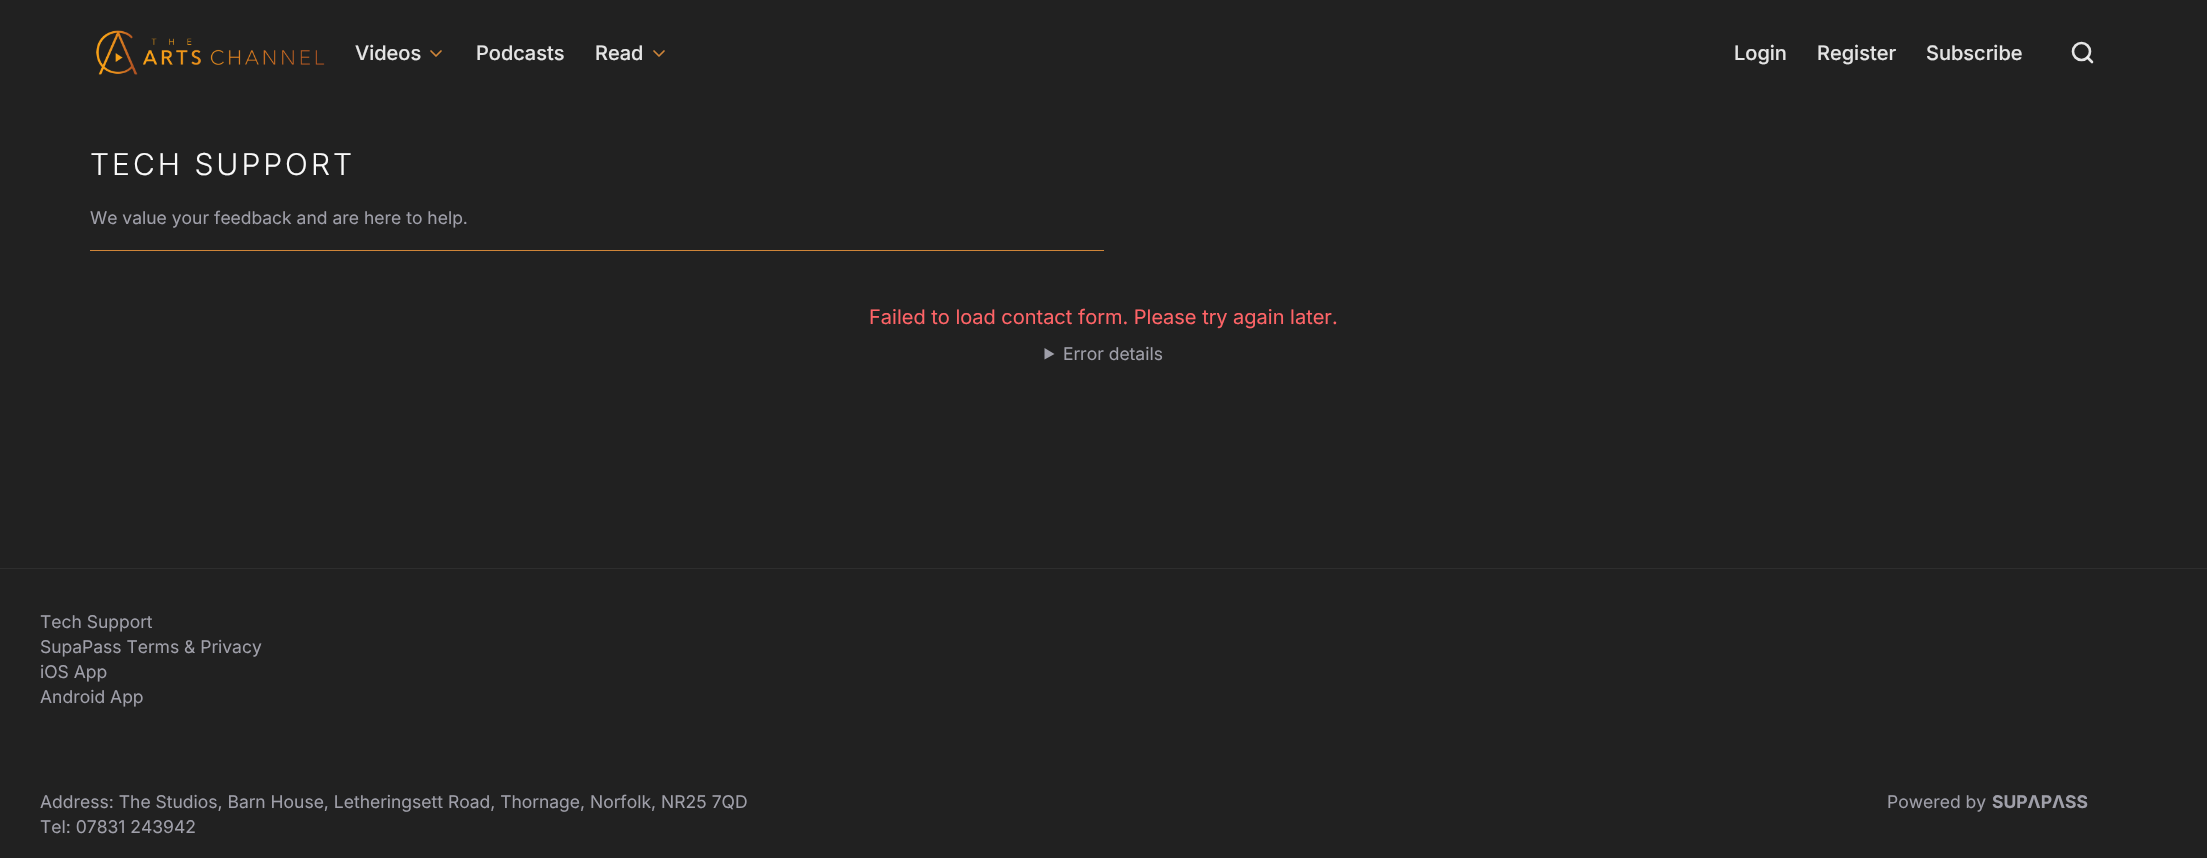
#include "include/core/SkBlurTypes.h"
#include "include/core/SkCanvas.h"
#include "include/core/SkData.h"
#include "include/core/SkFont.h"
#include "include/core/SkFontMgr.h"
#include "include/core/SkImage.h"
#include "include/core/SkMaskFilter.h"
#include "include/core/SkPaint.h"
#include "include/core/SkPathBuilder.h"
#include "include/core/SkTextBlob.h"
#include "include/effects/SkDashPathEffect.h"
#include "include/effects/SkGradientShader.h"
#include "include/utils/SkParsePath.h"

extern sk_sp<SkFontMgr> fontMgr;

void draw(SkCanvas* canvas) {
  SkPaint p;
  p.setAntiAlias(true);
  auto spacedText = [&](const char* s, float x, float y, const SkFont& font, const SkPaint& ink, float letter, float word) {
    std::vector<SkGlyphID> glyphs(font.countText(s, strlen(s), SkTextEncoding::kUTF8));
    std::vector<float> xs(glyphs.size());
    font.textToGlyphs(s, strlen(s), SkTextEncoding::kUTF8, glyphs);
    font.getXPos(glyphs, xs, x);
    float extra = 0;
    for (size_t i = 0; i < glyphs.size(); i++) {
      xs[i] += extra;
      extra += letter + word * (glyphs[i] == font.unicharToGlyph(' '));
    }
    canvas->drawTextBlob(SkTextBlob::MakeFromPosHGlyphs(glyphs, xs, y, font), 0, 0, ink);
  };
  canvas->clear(SkColorSetRGB(33, 33, 33));
  canvas->drawImageRect(SkImages::DeferredFromEncodedData(SkData::MakeFromFileName("images/1.png")), SkRect::MakeLTRB(96, 30, 325, 75), SkSamplingOptions());
  p.setStyle(SkPaint::kStroke_Style);
  p.setStrokeWidth(1.7f);
  p.setStrokeCap(SkPaint::kRound_Cap);
  p.setStrokeJoin(SkPaint::kRound_Join);
  p.setColor(SkColorSetRGB(207, 133, 57));
  canvas->drawPath(SkPathBuilder().moveTo(431, 51).lineTo(436, 56).lineTo(441, 51).detach(), p);
  canvas->drawPath(SkPathBuilder().moveTo(654, 51).lineTo(659, 56).lineTo(664, 51).detach(), p);
  p.setStrokeWidth(2.6f);
  p.setColor(SkColorSetRGB(228, 228, 228));
  canvas->drawPath(SkPathBuilder().moveTo(2092, 62).lineTo(2087.5f, 57.5f).detach(), p);
  p.setStrokeCap(SkPaint::kButt_Cap);
  p.setStrokeJoin(SkPaint::kMiter_Join);
  p.setColor(SkColorSetARGB(230, 250, 250, 250));
  canvas->drawCircle(2081.5f, 51.5f, 8.5f, p);
  p.setStyle(SkPaint::kFill_Style);
  p.setColor(SkColorSetRGB(207, 133, 57));
  canvas->drawRect(SkRect::MakeLTRB(90, 250, 1104, 251), p);
  p.setColor(SkColorSetRGB(159, 159, 169));
  canvas->drawPath(SkPathBuilder().moveTo(1044.5f, 348).lineTo(1054.5f, 354).lineTo(1044.5f, 359.5f).close().detach(), p);
  p.setColor(SkColorSetRGB(46, 46, 46));
  canvas->drawRect(SkRect::MakeLTRB(0, 568, 2207, 569), p);
  SkFont font1(fontMgr->matchFamilyStyle("Inter", SkFontStyle(500, SkFontStyle::kNormal_Width, SkFontStyle::kUpright_Slant)), 20);
  font1.setSubpixel(true);
  p.setColor(SkColorSetRGB(228, 228, 228));
  canvas->drawString("Videos", 355, 60, font1, p);
  canvas->drawString("Podcasts", 476, 60, font1, p);
  canvas->drawString("Read", 595, 60, font1, p);
  canvas->drawString("Login", 1734, 60, font1, p);
  canvas->drawString("Register", 1817, 60, font1, p);
  canvas->drawString("Subscribe", 1926, 60, font1, p);
  SkFont font2(fontMgr->matchFamilyStyle("Inter", SkFontStyle(300, SkFontStyle::kNormal_Width, SkFontStyle::kUpright_Slant)), 30);
  font2.setSubpixel(true);
  p.setColor(SkColorSetRGB(250, 250, 250));
  spacedText("TECH SUPPORT", 90, 175, font2, p, 3, 0);
  SkFont font3(fontMgr->matchFamilyStyle("Inter", SkFontStyle::Normal()), 17.5f);
  font3.setSubpixel(true);
  p.setColor(SkColorSetRGB(159, 159, 169));
  canvas->drawString("We value your feedback and are here to help.", 90, 224, font3, p);
  SkFont font4(fontMgr->matchFamilyStyle("Inter", SkFontStyle::Normal()), 20);
  font4.setSubpixel(true);
  p.setColor(SkColorSetRGB(255, 100, 103));
  canvas->drawString("Failed to load contact form. Please try again later.", 869, 324, font4, p);
  p.setColor(SkColorSetRGB(159, 159, 169));
  canvas->drawString("Error details", 1063, 360, font3, p);
  canvas->drawString("Tech Support", 40, 628, font3, p);
  canvas->drawString("SupaPass Terms & Privacy", 40, 653, font3, p);
  canvas->drawString("iOS App", 40, 678, font3, p);
  canvas->drawString("Android App", 40, 703, font3, p);
  canvas->drawString("Address: The Studios, Barn House, Letheringsett Road, Thornage, Norfolk, NR25 7QD", 40, 808, font3, p);
  canvas->drawString("Tel: 07831 243942", 40, 833, font3, p);
  canvas->drawString("Powered by", 1887, 808, font3, p);
  SkFont font5(fontMgr->matchFamilyStyle("Inter", SkFontStyle::Bold()), 17.5f);
  font5.setSubpixel(true);
  canvas->drawString("SUPΛPΛSS", 1992, 808, font5, p);
}
